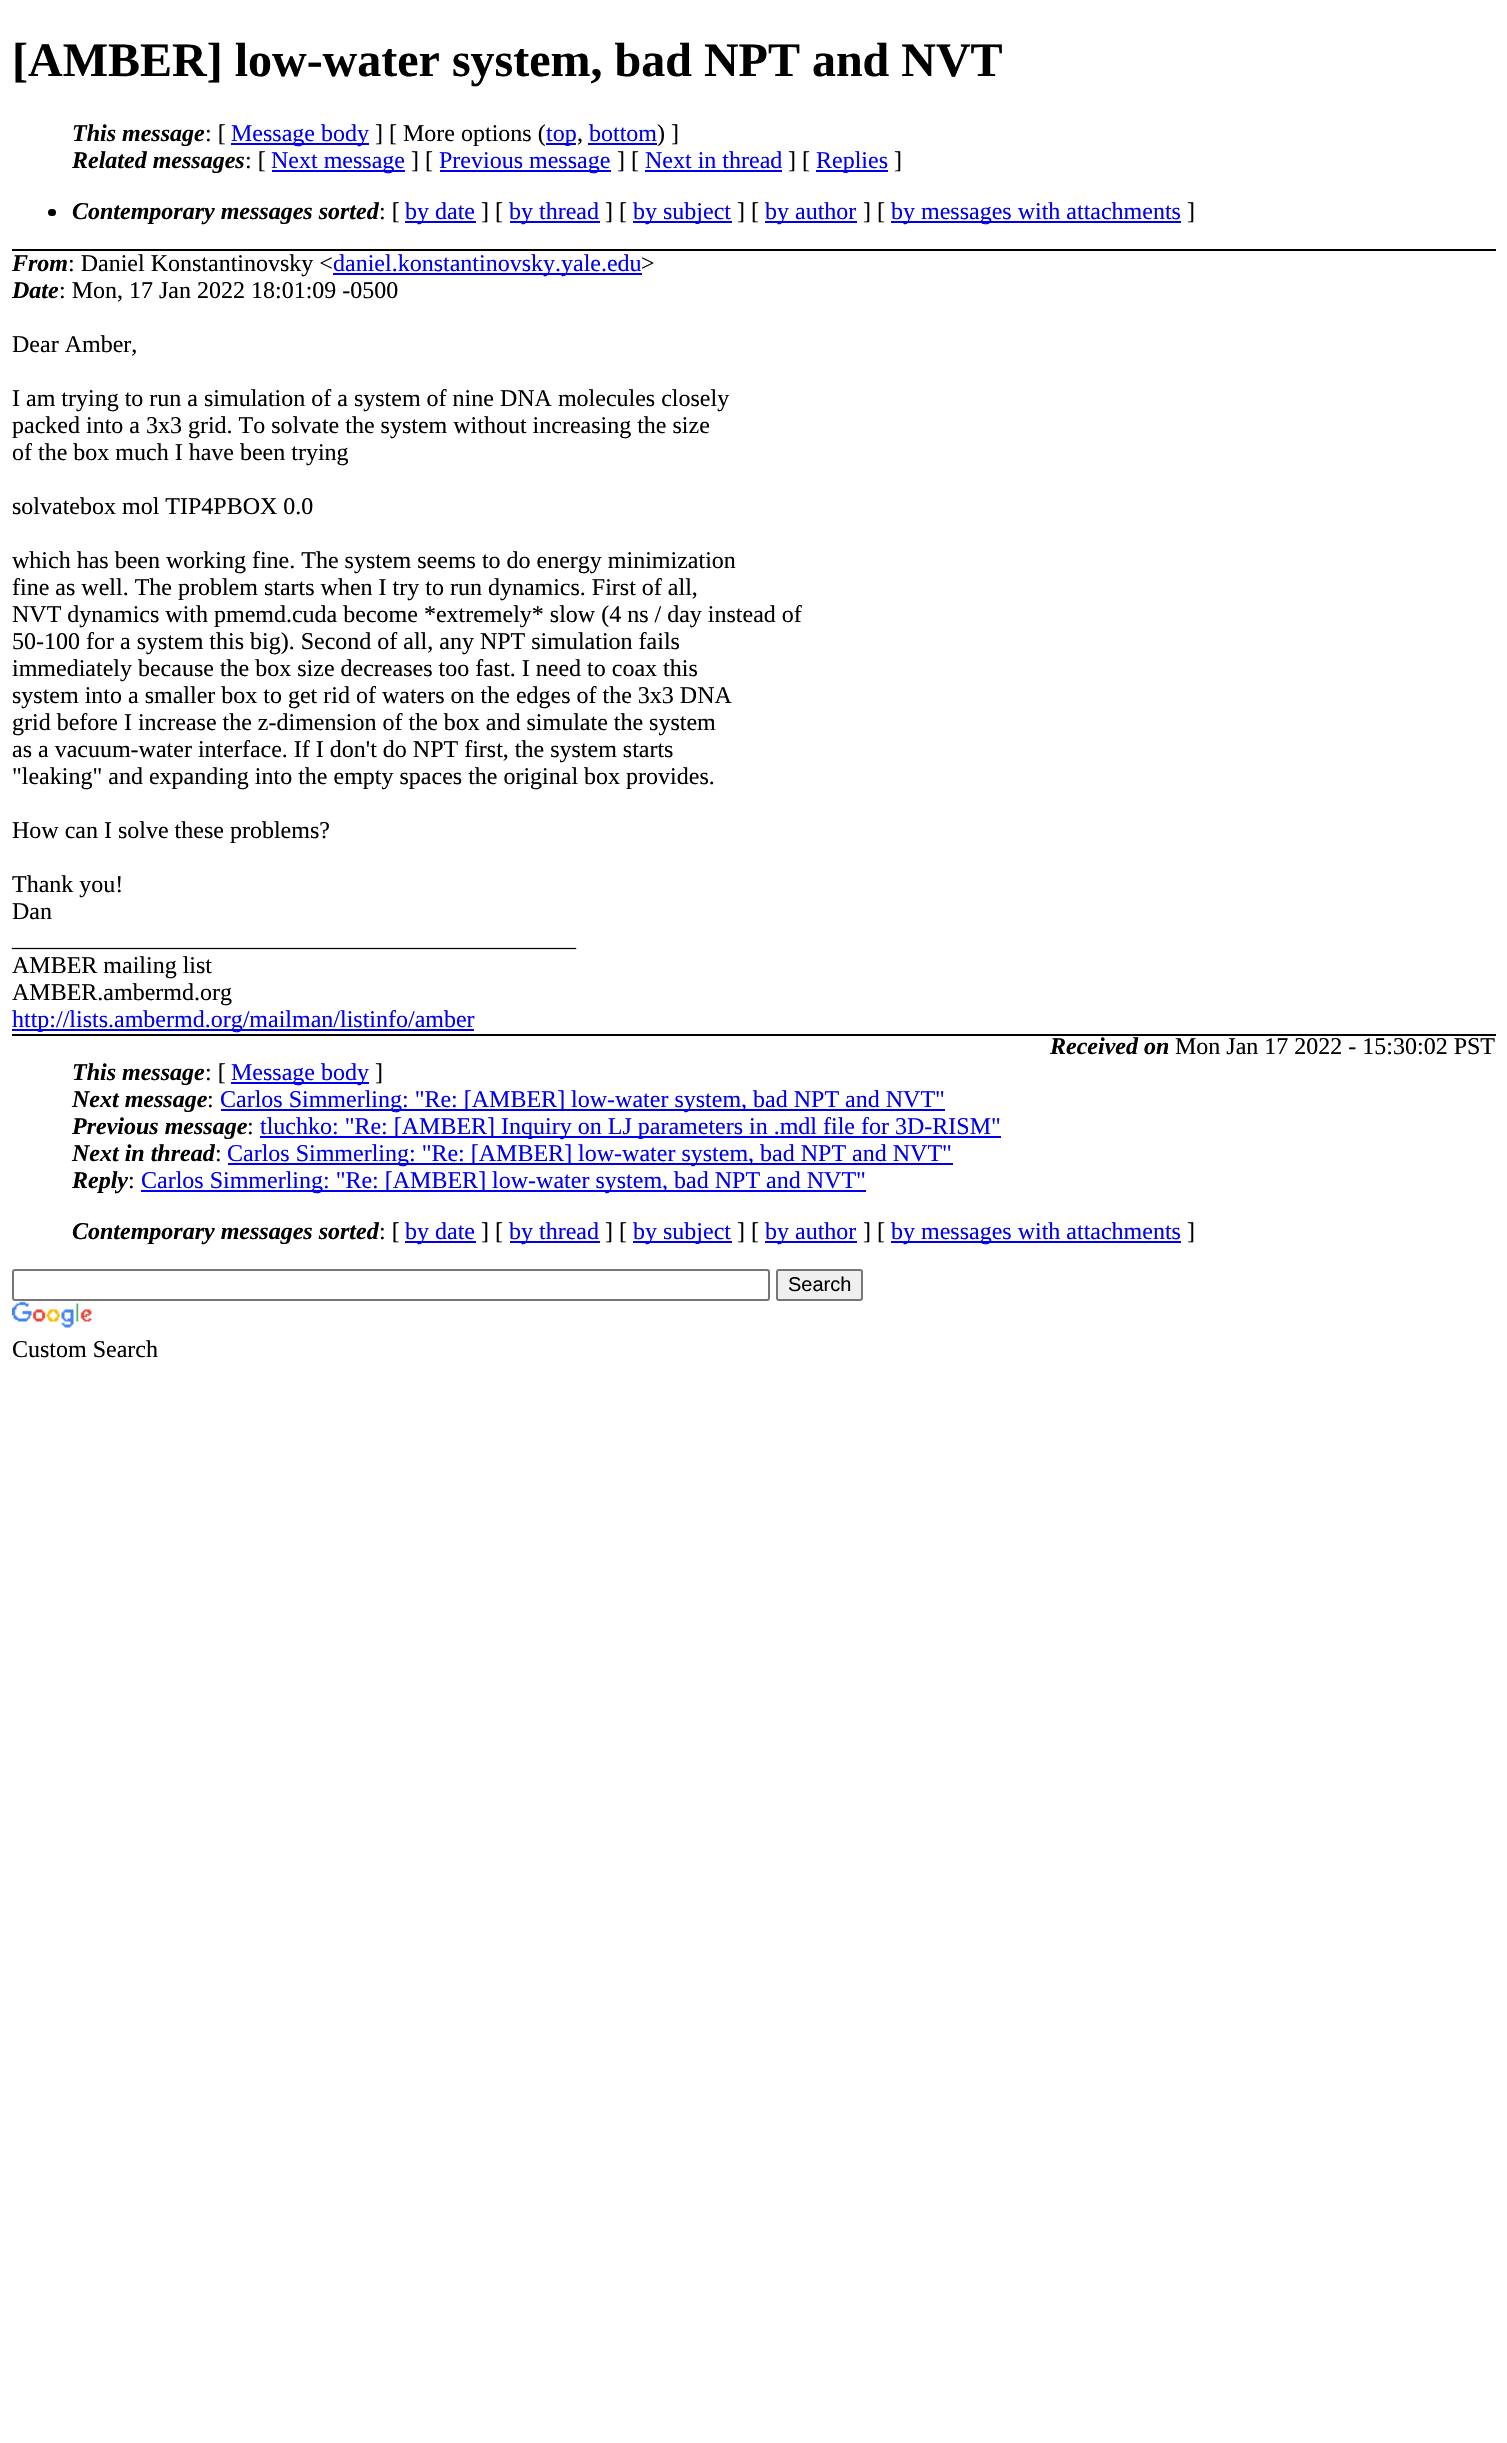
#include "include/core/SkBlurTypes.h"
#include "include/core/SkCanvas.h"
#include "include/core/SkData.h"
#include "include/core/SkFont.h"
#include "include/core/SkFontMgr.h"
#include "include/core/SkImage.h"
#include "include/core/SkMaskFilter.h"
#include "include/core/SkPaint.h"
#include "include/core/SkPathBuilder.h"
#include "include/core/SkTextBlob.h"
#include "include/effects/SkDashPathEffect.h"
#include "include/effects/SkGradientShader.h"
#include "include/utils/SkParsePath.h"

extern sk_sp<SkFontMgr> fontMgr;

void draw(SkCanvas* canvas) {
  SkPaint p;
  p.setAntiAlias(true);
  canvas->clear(SK_ColorWHITE);
  p.setColor(SK_ColorBLACK);
  canvas->drawRect(SkRect::MakeLTRB(12, 249, 1496, 251), p);
  p.setColor(SkColorSetRGB(0, 0, 238));
  canvas->drawRect(SkRect::MakeLTRB(231, 143, 369, 145), p);
  canvas->drawRect(SkRect::MakeLTRB(546, 143, 576, 145), p);
  canvas->drawRect(SkRect::MakeLTRB(588, 143, 657, 145), p);
  canvas->drawRect(SkRect::MakeLTRB(272, 170, 405, 172), p);
  canvas->drawRect(SkRect::MakeLTRB(440, 170, 611, 172), p);
  canvas->drawRect(SkRect::MakeLTRB(645, 170, 782, 172), p);
  canvas->drawRect(SkRect::MakeLTRB(816, 170, 888, 172), p);
  p.setColor(SK_ColorBLACK);
  canvas->drawRoundRect(SkRect::MakeLTRB(48, 209, 56, 216), 3.5f, 3.5f, p);
  p.setColor(SkColorSetRGB(0, 0, 238));
  canvas->drawRect(SkRect::MakeLTRB(405, 221, 476, 223), p);
  canvas->drawRect(SkRect::MakeLTRB(510, 221, 600, 223), p);
  canvas->drawRect(SkRect::MakeLTRB(633, 221, 732, 223), p);
  canvas->drawRect(SkRect::MakeLTRB(765, 221, 857, 223), p);
  canvas->drawRect(SkRect::MakeLTRB(891, 221, 1181, 223), p);
  canvas->drawRect(SkRect::MakeLTRB(333, 273, 642, 275), p);
  canvas->drawRect(SkRect::MakeLTRB(12, 1029, 474, 1031), p);
  p.setColor(SK_ColorBLACK);
  canvas->drawRect(SkRect::MakeLTRB(12, 1034, 1496, 1036), p);
  p.setColor(SkColorSetRGB(0, 0, 238));
  canvas->drawRect(SkRect::MakeLTRB(231, 1082, 369, 1084), p);
  canvas->drawRect(SkRect::MakeLTRB(221, 1109, 945, 1111), p);
  canvas->drawRect(SkRect::MakeLTRB(260, 1136, 1001, 1138), p);
  canvas->drawRect(SkRect::MakeLTRB(228, 1163, 953, 1165), p);
  canvas->drawRect(SkRect::MakeLTRB(141, 1190, 866, 1192), p);
  canvas->drawRect(SkRect::MakeLTRB(405, 1241, 476, 1243), p);
  canvas->drawRect(SkRect::MakeLTRB(510, 1241, 600, 1243), p);
  canvas->drawRect(SkRect::MakeLTRB(633, 1241, 732, 1243), p);
  canvas->drawRect(SkRect::MakeLTRB(765, 1241, 857, 1243), p);
  canvas->drawRect(SkRect::MakeLTRB(891, 1241, 1181, 1243), p);
  p.setStyle(SkPaint::kStroke_Style);
  p.setStrokeWidth(2);
  p.setColor(SkColorSetRGB(118, 118, 118));
  canvas->drawRoundRect(SkRect::MakeLTRB(13, 1270, 769, 1300), 2, 2, p);
  p.setStyle(SkPaint::kFill_Style);
  p.setColor(SkColorSetRGB(239, 239, 239));
  canvas->drawRoundRect(SkRect::MakeLTRB(777, 1270, 862, 1300), 2, 2, p);
  p.setStyle(SkPaint::kStroke_Style);
  p.setColor(SkColorSetRGB(118, 118, 118));
  canvas->drawRoundRect(SkRect::MakeLTRB(777, 1270, 862, 1300), 2, 2, p);
  canvas->drawImageRect(SkImages::DeferredFromEncodedData(SkData::MakeFromFileName("images/1.png")), SkRect::MakeLTRB(12, 1301, 92, 1328), SkSamplingOptions());
  SkFont font1(fontMgr->matchFamilyStyle("Liberation Serif", SkFontStyle::Bold()), 48);
  font1.setSubpixel(true);
  p.setStyle(SkPaint::kFill_Style);
  p.setColor(SK_ColorBLACK);
  canvas->drawString("[AMBER] low-water system, bad NPT and NVT", 12, 76, font1, p);
  SkFont font2(fontMgr->matchFamilyStyle("Liberation Serif", SkFontStyle::BoldItalic()), 24);
  font2.setSubpixel(true);
  canvas->drawString("This message", 72, 141, font2, p);
  SkFont font3(fontMgr->matchFamilyStyle("Liberation Serif", SkFontStyle::Normal()), 24);
  font3.setSubpixel(true);
  canvas->drawString(": [", 205, 141, font3, p);
  p.setColor(SkColorSetRGB(0, 0, 238));
  canvas->drawString("Message body", 231, 141, font3, p);
  p.setColor(SK_ColorBLACK);
  canvas->drawString("] [ More options (", 375, 141, font3, p);
  p.setColor(SkColorSetRGB(0, 0, 238));
  canvas->drawString("top", 546, 141, font3, p);
  p.setColor(SK_ColorBLACK);
  canvas->drawString(",", 577, 141, font3, p);
  p.setColor(SkColorSetRGB(0, 0, 238));
  canvas->drawString("bottom", 589, 141, font3, p);
  p.setColor(SK_ColorBLACK);
  canvas->drawString(") ]", 657, 141, font3, p);
  canvas->drawString("Related messages", 72, 168, font2, p);
  canvas->drawString(": [", 245, 168, font3, p);
  p.setColor(SkColorSetRGB(0, 0, 238));
  canvas->drawString("Next message", 271, 168, font3, p);
  p.setColor(SK_ColorBLACK);
  canvas->drawString("] [", 411, 168, font3, p);
  p.setColor(SkColorSetRGB(0, 0, 238));
  canvas->drawString("Previous message", 439, 168, font3, p);
  p.setColor(SK_ColorBLACK);
  canvas->drawString("] [", 617, 168, font3, p);
  p.setColor(SkColorSetRGB(0, 0, 238));
  canvas->drawString("Next in thread", 645, 168, font3, p);
  p.setColor(SK_ColorBLACK);
  canvas->drawString("] [", 788, 168, font3, p);
  p.setColor(SkColorSetRGB(0, 0, 238));
  canvas->drawString("Replies", 816, 168, font3, p);
  p.setColor(SK_ColorBLACK);
  canvas->drawString("]", 894, 168, font3, p);
  canvas->drawString("Contemporary messages sorted", 72, 219, font2, p);
  canvas->drawString(": [", 379, 219, font3, p);
  p.setColor(SkColorSetRGB(0, 0, 238));
  canvas->drawString("by date", 405, 219, font3, p);
  p.setColor(SK_ColorBLACK);
  canvas->drawString("] [", 481, 219, font3, p);
  p.setColor(SkColorSetRGB(0, 0, 238));
  canvas->drawString("by thread", 509, 219, font3, p);
  p.setColor(SK_ColorBLACK);
  canvas->drawString("] [", 605, 219, font3, p);
  p.setColor(SkColorSetRGB(0, 0, 238));
  canvas->drawString("by subject", 633, 219, font3, p);
  p.setColor(SK_ColorBLACK);
  canvas->drawString("] [", 737, 219, font3, p);
  p.setColor(SkColorSetRGB(0, 0, 238));
  canvas->drawString("by author", 765, 219, font3, p);
  p.setColor(SK_ColorBLACK);
  canvas->drawString("] [", 863, 219, font3, p);
  p.setColor(SkColorSetRGB(0, 0, 238));
  canvas->drawString("by messages with attachments", 891, 219, font3, p);
  p.setColor(SK_ColorBLACK);
  canvas->drawString("]", 1187, 219, font3, p);
  canvas->drawString("From", 12, 271, font2, p);
  canvas->drawString(": Daniel Konstantinovsky <", 68, 271, font3, p);
  p.setColor(SkColorSetRGB(0, 0, 238));
  canvas->drawString("daniel.konstantinovsky.yale.edu", 333, 271, font3, p);
  p.setColor(SK_ColorBLACK);
  canvas->drawString(">", 641, 271, font3, p);
  canvas->drawString("Date", 12, 298, font2, p);
  canvas->drawString(": Mon, 17 Jan 2022 18:01:09 -0500", 59, 298, font3, p);
  canvas->drawString("Dear Amber,", 12, 352, font3, p);
  canvas->drawString("I am trying to run a simulation of a system of nine DNA molecules closely", 12, 406, font3, p);
  canvas->drawString("packed into a 3x3 grid. To solvate the system without increasing the size", 12, 433, font3, p);
  canvas->drawString("of the box much I have been trying", 12, 460, font3, p);
  canvas->drawString("solvatebox mol TIP4PBOX 0.0", 12, 514, font3, p);
  canvas->drawString("which has been working fine. The system seems to do energy minimization", 12, 568, font3, p);
  canvas->drawString("fine as well. The problem starts when I try to run dynamics. First of all,", 12, 595, font3, p);
  canvas->drawString("NVT dynamics with pmemd.cuda become *extremely* slow (4 ns / day instead of", 12, 622, font3, p);
  canvas->drawString("50-100 for a system this big). Second of all, any NPT simulation fails", 12, 649, font3, p);
  canvas->drawString("immediately because the box size decreases too fast. I need to coax this", 12, 676, font3, p);
  canvas->drawString("system into a smaller box to get rid of waters on the edges of the 3x3 DNA", 12, 703, font3, p);
  canvas->drawString("grid before I increase the z-dimension of the box and simulate the system", 12, 730, font3, p);
  canvas->drawString("as a vacuum-water interface. If I don't do NPT first, the system starts", 12, 757, font3, p);
  canvas->drawString("\"leaking\" and expanding into the empty spaces the original box provides.", 12, 784, font3, p);
  canvas->drawString("How can I solve these problems?", 12, 838, font3, p);
  canvas->drawString("Thank you!", 12, 892, font3, p);
  canvas->drawString("Dan", 12, 919, font3, p);
  canvas->drawString("_______________________________________________", 12, 946, font3, p);
  canvas->drawString("AMBER mailing list", 12, 973, font3, p);
  canvas->drawString("AMBER.ambermd.org", 12, 1000, font3, p);
  p.setColor(SkColorSetRGB(0, 0, 238));
  canvas->drawString("http://lists.ambermd.org/mailman/listinfo/amber", 12, 1027, font3, p);
  p.setColor(SK_ColorBLACK);
  canvas->drawString("Received on", 1050, 1054, font2, p);
  canvas->drawString("Mon Jan 17 2022 - 15:30:02 PST", 1175, 1054, font3, p);
  canvas->drawString("This message", 72, 1080, font2, p);
  canvas->drawString(": [", 205, 1080, font3, p);
  p.setColor(SkColorSetRGB(0, 0, 238));
  canvas->drawString("Message body", 231, 1080, font3, p);
  p.setColor(SK_ColorBLACK);
  canvas->drawString("]", 375, 1080, font3, p);
  canvas->drawString("Next message", 72, 1107, font2, p);
  canvas->drawString(":", 207, 1107, font3, p);
  p.setColor(SkColorSetRGB(0, 0, 238));
  canvas->drawString("Carlos Simmerling: \"Re: [AMBER] low-water system, bad NPT and NVT\"", 220, 1107, font3, p);
  p.setColor(SK_ColorBLACK);
  canvas->drawString("Previous message", 72, 1134, font2, p);
  canvas->drawString(":", 247, 1134, font3, p);
  p.setColor(SkColorSetRGB(0, 0, 238));
  canvas->drawString("tluchko: \"Re: [AMBER] Inquiry on LJ parameters in .mdl file for 3D-RISM\"", 260, 1134, font3, p);
  p.setColor(SK_ColorBLACK);
  canvas->drawString("Next in thread", 72, 1161, font2, p);
  canvas->drawString(":", 215, 1161, font3, p);
  p.setColor(SkColorSetRGB(0, 0, 238));
  canvas->drawString("Carlos Simmerling: \"Re: [AMBER] low-water system, bad NPT and NVT\"", 227, 1161, font3, p);
  p.setColor(SK_ColorBLACK);
  canvas->drawString("Reply", 72, 1188, font2, p);
  canvas->drawString(":", 128, 1188, font3, p);
  p.setColor(SkColorSetRGB(0, 0, 238));
  canvas->drawString("Carlos Simmerling: \"Re: [AMBER] low-water system, bad NPT and NVT\"", 141, 1188, font3, p);
  p.setColor(SK_ColorBLACK);
  canvas->drawString("Contemporary messages sorted", 72, 1239, font2, p);
  canvas->drawString(": [", 379, 1239, font3, p);
  p.setColor(SkColorSetRGB(0, 0, 238));
  canvas->drawString("by date", 405, 1239, font3, p);
  p.setColor(SK_ColorBLACK);
  canvas->drawString("] [", 481, 1239, font3, p);
  p.setColor(SkColorSetRGB(0, 0, 238));
  canvas->drawString("by thread", 509, 1239, font3, p);
  p.setColor(SK_ColorBLACK);
  canvas->drawString("] [", 605, 1239, font3, p);
  p.setColor(SkColorSetRGB(0, 0, 238));
  canvas->drawString("by subject", 633, 1239, font3, p);
  p.setColor(SK_ColorBLACK);
  canvas->drawString("] [", 737, 1239, font3, p);
  p.setColor(SkColorSetRGB(0, 0, 238));
  canvas->drawString("by author", 765, 1239, font3, p);
  p.setColor(SK_ColorBLACK);
  canvas->drawString("] [", 863, 1239, font3, p);
  p.setColor(SkColorSetRGB(0, 0, 238));
  canvas->drawString("by messages with attachments", 891, 1239, font3, p);
  p.setColor(SK_ColorBLACK);
  canvas->drawString("]", 1187, 1239, font3, p);
  SkFont font4(fontMgr->matchFamilyStyle("Liberation Sans", SkFontStyle::Normal()), 20);
  font4.setSubpixel(true);
  canvas->drawString("Search", 788, 1291, font4, p);
  canvas->drawString("Custom Search", 12, 1357, font3, p);
}
